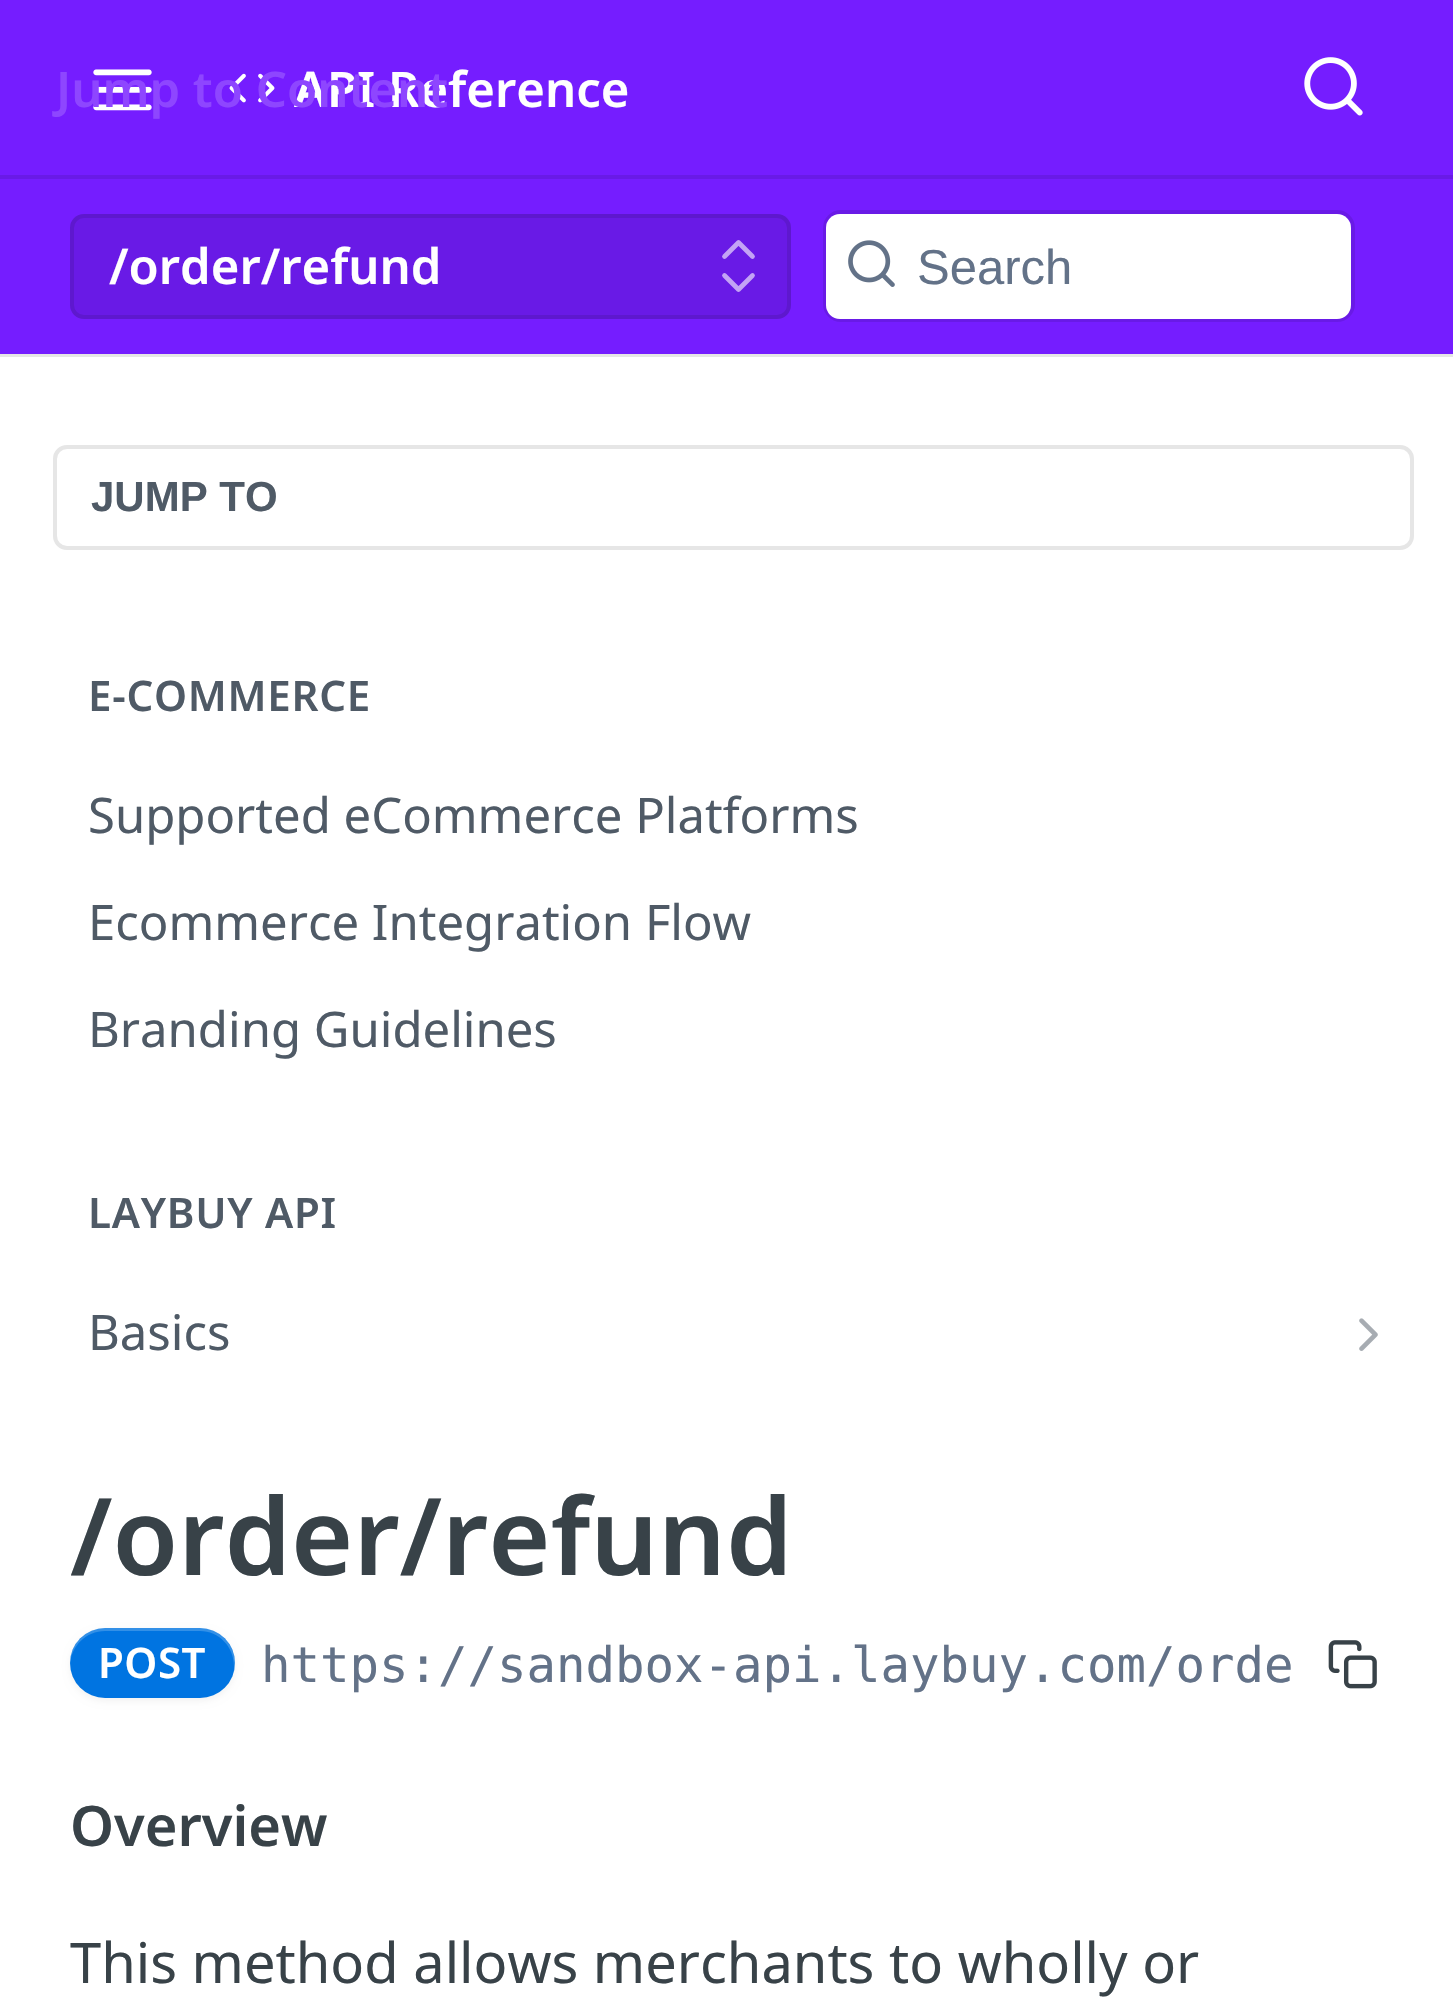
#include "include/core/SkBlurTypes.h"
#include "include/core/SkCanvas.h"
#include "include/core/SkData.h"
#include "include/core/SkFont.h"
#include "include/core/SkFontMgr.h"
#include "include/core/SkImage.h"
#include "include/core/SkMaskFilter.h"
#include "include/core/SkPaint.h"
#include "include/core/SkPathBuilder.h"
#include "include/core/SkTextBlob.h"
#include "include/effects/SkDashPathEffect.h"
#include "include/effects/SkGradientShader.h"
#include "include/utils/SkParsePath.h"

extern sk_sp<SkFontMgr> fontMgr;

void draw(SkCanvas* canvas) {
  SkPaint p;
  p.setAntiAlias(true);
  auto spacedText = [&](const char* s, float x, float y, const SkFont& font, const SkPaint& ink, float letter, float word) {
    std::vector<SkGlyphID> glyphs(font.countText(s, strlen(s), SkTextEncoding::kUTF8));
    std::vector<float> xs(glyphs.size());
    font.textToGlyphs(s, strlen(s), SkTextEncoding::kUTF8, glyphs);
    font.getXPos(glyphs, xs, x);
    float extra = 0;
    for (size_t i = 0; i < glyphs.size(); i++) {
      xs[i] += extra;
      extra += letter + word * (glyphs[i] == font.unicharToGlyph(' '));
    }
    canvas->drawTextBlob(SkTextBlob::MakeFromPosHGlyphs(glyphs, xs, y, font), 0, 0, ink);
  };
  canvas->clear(SK_ColorWHITE);
  p.setColor(SkColorSetRGB(230, 230, 230));
  canvas->drawRect(SkRect::MakeLTRB(0, 354, 1453, 357), p);
  p.setColor(SkColorSetRGB(117, 29, 255));
  canvas->drawRect(SkRect::MakeLTRB(0, 0, 1453, 354), p);
  p.setColor(SkColorSetRGB(105, 26, 230));
  canvas->drawRect(SkRect::MakeLTRB(0, 175, 1453, 179), p);
  canvas->drawImageRect(SkImages::DeferredFromEncodedData(SkData::MakeFromFileName("images/1.png")), SkRect::MakeLTRB(93, 69, 152, 111), SkSamplingOptions());
  canvas->drawImageRect(SkImages::DeferredFromEncodedData(SkData::MakeFromFileName("images/2.png")), SkRect::MakeLTRB(229, 73, 275, 103), SkSamplingOptions());
  canvas->drawImageRect(SkImages::DeferredFromEncodedData(SkData::MakeFromFileName("images/3.png")), SkRect::MakeLTRB(1304, 57, 1363, 116), SkSamplingOptions());
  canvas->drawRoundRect(SkRect::MakeLTRB(70, 214, 791, 319), 14, 14, p);
  p.setStyle(SkPaint::kStroke_Style);
  p.setStrokeWidth(4);
  p.setColor(SkColorSetARGB(26, 0, 0, 0));
  canvas->drawRoundRect(SkRect::MakeLTRB(72, 216, 789, 317), 12, 12, p);
  p.setStrokeWidth(4.7f);
  p.setStrokeCap(SkPaint::kRound_Cap);
  p.setStrokeJoin(SkPaint::kRound_Join);
  p.setColor(SkColorSetRGB(195, 163, 245));
  canvas->drawPath(SkPathBuilder().moveTo(724.5f, 275.5f).lineTo(738.5f, 289.5f).lineTo(752.5f, 275.5f).moveTo(752.5f, 256.5f).lineTo(738.5f, 242.5f).lineTo(724.5f, 256.5f).detach(), p);
  p.setStrokeWidth(4);
  p.setStrokeCap(SkPaint::kButt_Cap);
  p.setStrokeJoin(SkPaint::kMiter_Join);
  p.setColor(SkColorSetRGB(105, 26, 230));
  canvas->drawRoundRect(SkRect::MakeLTRB(825, 212, 1353, 320), 16, 16, p);
  p.setStyle(SkPaint::kFill_Style);
  p.setColor(SK_ColorWHITE);
  canvas->drawRoundRect(SkRect::MakeLTRB(826, 214, 1351, 319), 14, 14, p);
  canvas->drawImageRect(SkImages::DeferredFromEncodedData(SkData::MakeFromFileName("images/4.png")), SkRect::MakeLTRB(848, 240, 895, 287), SkSamplingOptions());
  p.setStyle(SkPaint::kStroke_Style);
  p.setColor(SkColorSetRGB(230, 230, 230));
  canvas->drawRoundRect(SkRect::MakeLTRB(55, 447, 1412, 548), 12, 12, p);
  canvas->drawImageRect(SkImages::DeferredFromEncodedData(SkData::MakeFromFileName("images/5.png")), SkRect::MakeLTRB(1359, 1318, 1378, 1351), SkSamplingOptions());
  p.setStyle(SkPaint::kFill_Style);
  p.setColor(SkColorSetARGB(13, 0, 0, 0));
  p.setMaskFilter(SkMaskFilter::MakeBlur(kNormal_SkBlurStyle, 3.5f));
  canvas->drawRoundRect(SkRect::MakeLTRB(70, 1631, 235, 1701), 35, 35, p);
  p.setMaskFilter(nullptr);
  p.setColor(SkColorSetRGB(0, 116, 225));
  canvas->drawRoundRect(SkRect::MakeLTRB(70, 1628, 235, 1698), 35, 35, p);
  p.setColor(SkColorSetARGB(51, 255, 255, 255));
  canvas->drawPath(SkPathBuilder().moveTo(105, 1631).lineTo(200, 1631).cubicTo(219, 1631, 234, 1647, 234, 1666).cubicTo(234, 1669, 234, 1672, 233, 1675).cubicTo(234, 1672, 235, 1667, 235, 1663).cubicTo(235, 1644, 219, 1628, 200, 1628).lineTo(105, 1628).cubicTo(86, 1628, 70, 1644, 70, 1663).lineTo(70, 1665).cubicTo(71, 1646, 86, 1631, 105, 1631).close().detach(), p);
  canvas->drawImageRect(SkImages::DeferredFromEncodedData(SkData::MakeFromFileName("images/6.png")), SkRect::MakeLTRB(1328, 1640, 1377, 1689), SkSamplingOptions());
  SkFont font1(fontMgr->matchFamilyStyle("Noto Sans", SkFontStyle(600, SkFontStyle::kNormal_Width, SkFontStyle::kUpright_Slant)), 49);
  font1.setSubpixel(true);
  p.setColor(SK_ColorWHITE);
  canvas->drawString("API Reference", 294, 107, font1, p);
  p.setColor(SkColorSetRGB(142, 70, 255));
  canvas->drawString("Jump to Content", 56, 107, font1, p);
  p.setColor(SK_ColorWHITE);
  canvas->drawString("/order/refund", 109, 284, font1, p);
  SkFont font2(fontMgr->matchFamilyStyle("Liberation Sans", SkFontStyle::Normal()), 49);
  font2.setSubpixel(true);
  p.setColor(SkColorSetRGB(99, 114, 136));
  canvas->drawString("Search", 917, 284, font2, p);
  SkFont font3(fontMgr->matchFamilyStyle("Liberation Sans", SkFontStyle::Bold()), 42);
  font3.setSubpixel(true);
  p.setColor(SkColorSetRGB(79, 90, 102));
  canvas->drawString("JUMP TO", 91, 511, font3, p);
  SkFont font4(fontMgr->matchFamilyStyle("Noto Sans", SkFontStyle(600, SkFontStyle::kNormal_Width, SkFontStyle::kUpright_Slant)), 42);
  font4.setSubpixel(true);
  spacedText("E-COMMERCE", 88, 711, font4, p, 0.75f, 0);
  SkFont font5(fontMgr->matchFamilyStyle("Noto Sans", SkFontStyle::Normal()), 49);
  font5.setSubpixel(true);
  canvas->drawString("Supported eCommerce Platforms", 88, 833, font5, p);
  canvas->drawString("Ecommerce Integration Flow", 88, 940, font5, p);
  canvas->drawString("Branding Guidelines", 88, 1047, font5, p);
  spacedText("LAYBUY API", 88, 1228, font4, p, 0.75f, 0);
  canvas->drawString("Basics", 88, 1350, font5, p);
  SkFont font6(fontMgr->matchFamilyStyle("Noto Sans", SkFontStyle(600, SkFontStyle::kNormal_Width, SkFontStyle::kUpright_Slant)), 106.5f);
  font6.setSubpixel(true);
  p.setColor(SkColorSetRGB(56, 66, 72));
  canvas->drawString("/order/refund", 70, 1575, font6, p);
  p.setColor(SK_ColorWHITE);
  spacedText("POST", 98, 1678, font4, p, 0.5f, 0);
  SkFont font7(fontMgr->matchFamilyStyle("DejaVu Sans Mono", SkFontStyle::Normal()), 49);
  font7.setSubpixel(true);
  p.setColor(SkColorSetRGB(99, 114, 136));
  canvas->drawString("https://sandbox-api.laybuy.com/orde", 261, 1682, font7, p);
  SkFont font8(fontMgr->matchFamilyStyle("Noto Sans", SkFontStyle(600, SkFontStyle::kNormal_Width, SkFontStyle::kUpright_Slant)), 56);
  font8.setSubpixel(true);
  p.setColor(SkColorSetRGB(56, 66, 72));
  canvas->drawString("Overview", 70, 1846, font8, p);
  SkFont font9(fontMgr->matchFamilyStyle("Noto Sans", SkFontStyle::Normal()), 56);
  font9.setSubpixel(true);
  canvas->drawString("This method allows merchants to wholly or", 70, 1983, font9, p);
}
